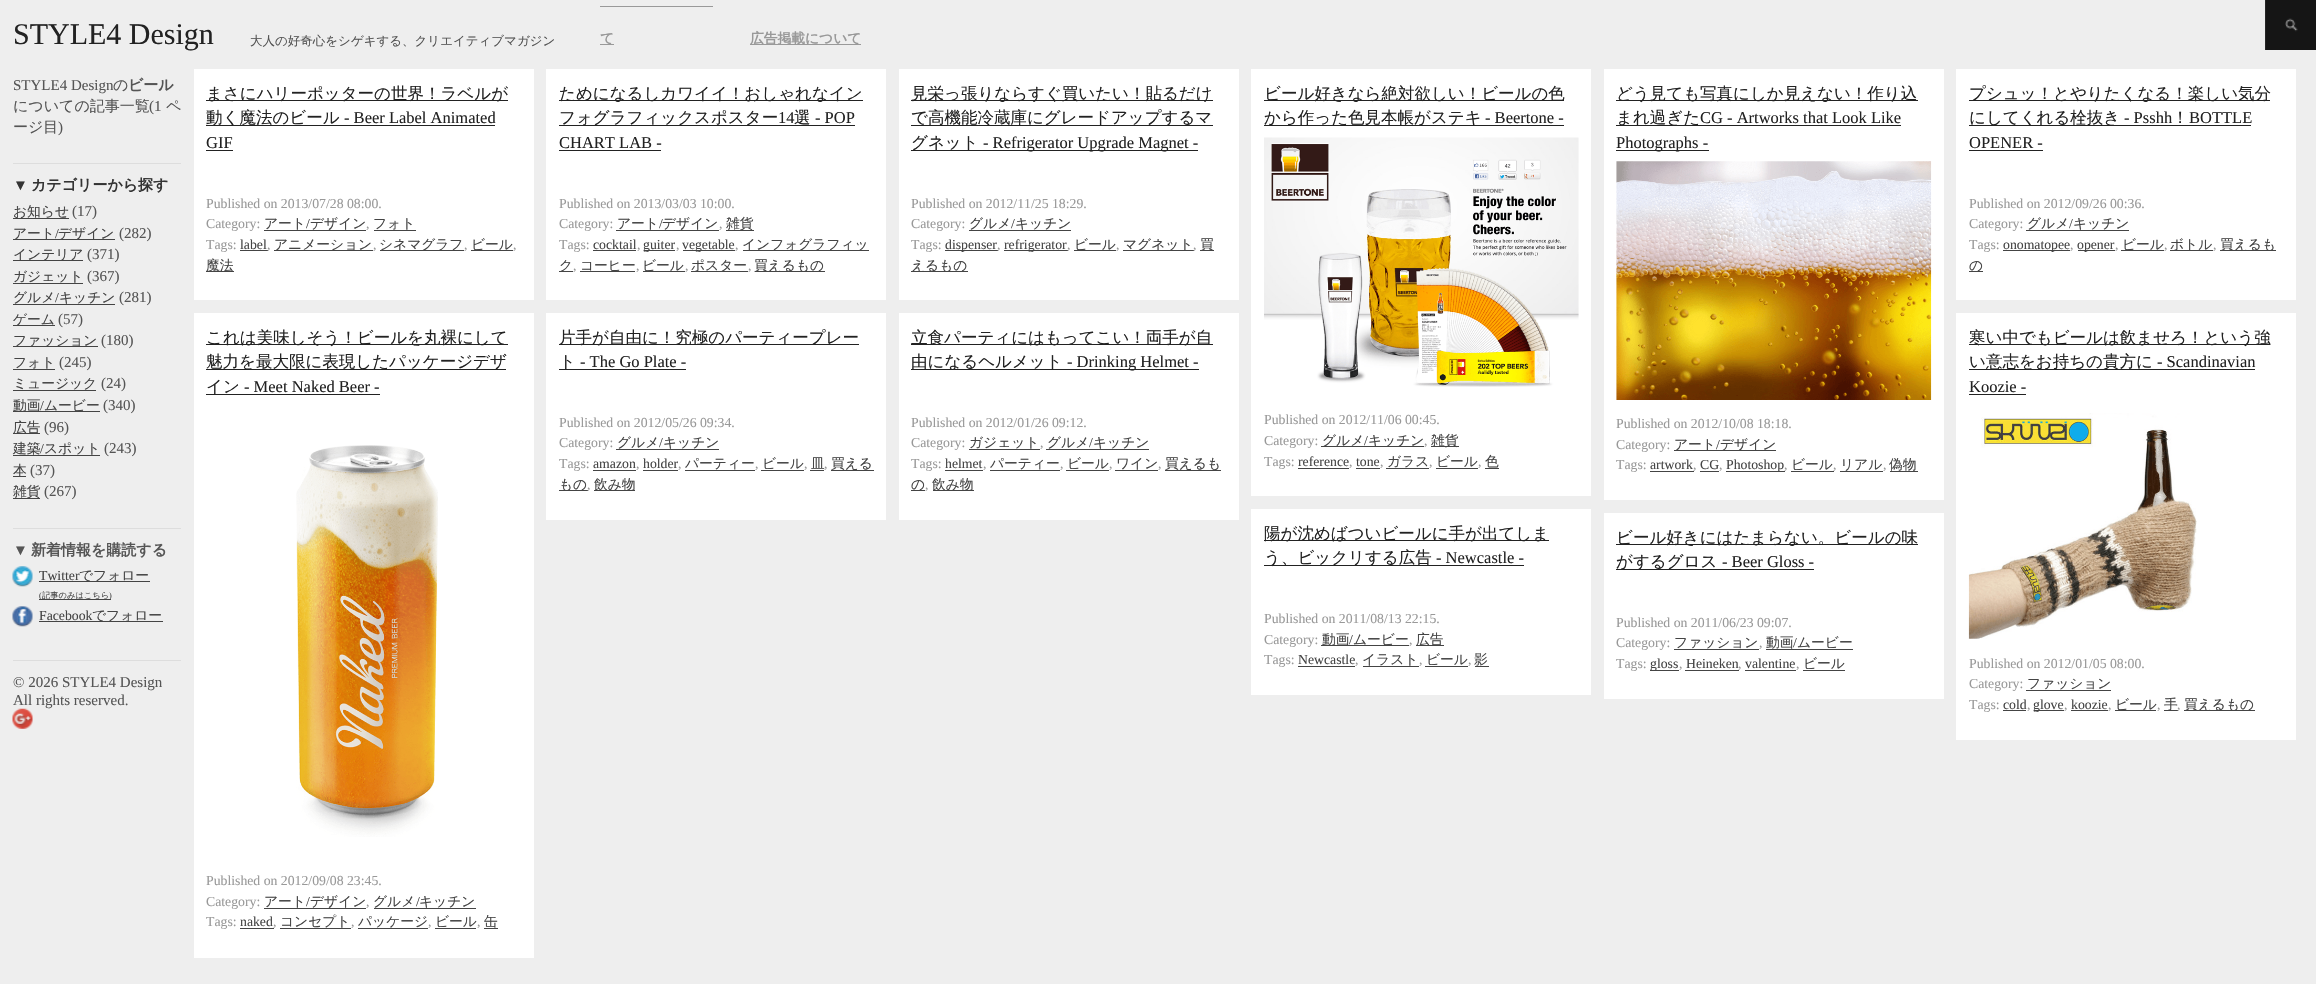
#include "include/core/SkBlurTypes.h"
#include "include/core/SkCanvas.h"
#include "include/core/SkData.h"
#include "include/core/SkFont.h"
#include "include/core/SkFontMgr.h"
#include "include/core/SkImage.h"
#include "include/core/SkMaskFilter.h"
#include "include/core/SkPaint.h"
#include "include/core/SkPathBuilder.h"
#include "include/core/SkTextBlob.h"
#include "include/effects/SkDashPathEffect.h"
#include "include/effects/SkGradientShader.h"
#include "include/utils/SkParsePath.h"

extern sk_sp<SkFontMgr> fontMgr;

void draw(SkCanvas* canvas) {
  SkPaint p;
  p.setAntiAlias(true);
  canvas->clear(SkColorSetRGB(238, 238, 238));
  p.setColor(SkColorSetRGB(153, 153, 153));
  canvas->drawRect(SkRect::MakeLTRB(600, 6, 713, 7), p);
  canvas->drawRect(SkRect::MakeLTRB(600, 44, 614, 45), p);
  canvas->drawRect(SkRect::MakeLTRB(750, 44, 861, 45), p);
  p.setColor(SkColorSetRGB(21, 21, 21));
  canvas->drawRect(SkRect::MakeLTRB(2266, 0, 2316, 50), p);
  canvas->drawImageRect(SkImages::DeferredFromEncodedData(SkData::MakeFromFileName("images/1.png")), SkRect::MakeLTRB(2285, 18, 2298, 32), SkSamplingOptions());
  p.setColor(SkColorSetRGB(37, 37, 37));
  canvas->drawRect(SkRect::MakeLTRB(2265, 0, 2266, 50), p);
  p.setColor(SkColorSetRGB(221, 221, 221));
  canvas->drawRect(SkRect::MakeLTRB(13, 163, 181, 164), p);
  p.setColor(SkColorSetRGB(68, 68, 68));
  canvas->drawRect(SkRect::MakeLTRB(13, 218, 69, 219), p);
  canvas->drawRect(SkRect::MakeLTRB(13, 239, 115, 240), p);
  canvas->drawRect(SkRect::MakeLTRB(13, 260, 83, 261), p);
  canvas->drawRect(SkRect::MakeLTRB(13, 283, 83, 284), p);
  canvas->drawRect(SkRect::MakeLTRB(13, 304, 115, 305), p);
  canvas->drawRect(SkRect::MakeLTRB(13, 325, 55, 326), p);
  canvas->drawRect(SkRect::MakeLTRB(13, 346, 98, 347), p);
  canvas->drawRect(SkRect::MakeLTRB(13, 369, 55, 370), p);
  canvas->drawRect(SkRect::MakeLTRB(13, 390, 96, 391), p);
  canvas->drawRect(SkRect::MakeLTRB(13, 411, 100, 412), p);
  canvas->drawRect(SkRect::MakeLTRB(13, 433, 40, 434), p);
  canvas->drawRect(SkRect::MakeLTRB(13, 455, 100, 456), p);
  canvas->drawRect(SkRect::MakeLTRB(13, 476, 26, 477), p);
  canvas->drawRect(SkRect::MakeLTRB(13, 498, 40, 499), p);
  p.setColor(SkColorSetRGB(221, 221, 221));
  canvas->drawRect(SkRect::MakeLTRB(13, 528, 181, 529), p);
  canvas->drawImageRect(SkImages::DeferredFromEncodedData(SkData::MakeFromFileName("images/2.png")), SkRect::MakeLTRB(12, 566, 33, 587), SkSamplingOptions());
  p.setColor(SkColorSetRGB(68, 68, 68));
  canvas->drawRect(SkRect::MakeLTRB(39, 581, 150, 582), p);
  canvas->drawRect(SkRect::MakeLTRB(39, 599, 111, 600), p);
  canvas->drawImageRect(SkImages::DeferredFromEncodedData(SkData::MakeFromFileName("images/3.png")), SkRect::MakeLTRB(12, 606, 33, 627), SkSamplingOptions());
  canvas->drawRect(SkRect::MakeLTRB(39, 621, 163, 622), p);
  p.setColor(SkColorSetRGB(221, 221, 221));
  canvas->drawRect(SkRect::MakeLTRB(13, 660, 181, 661), p);
  p.setColor(SK_ColorWHITE);
  canvas->drawRect(SkRect::MakeLTRB(194, 69, 534, 300), p);
  p.setColor(SkColorSetRGB(34, 34, 34));
  canvas->drawRect(SkRect::MakeLTRB(206, 100, 508, 101), p);
  canvas->drawRect(SkRect::MakeLTRB(206, 125, 495, 126), p);
  canvas->drawRect(SkRect::MakeLTRB(206, 150, 233, 151), p);
  p.setColor(SkColorSetRGB(68, 68, 68));
  canvas->drawRect(SkRect::MakeLTRB(264, 230, 366, 231), p);
  canvas->drawRect(SkRect::MakeLTRB(374, 230, 416, 231), p);
  canvas->drawRect(SkRect::MakeLTRB(240, 250, 268, 251), p);
  canvas->drawRect(SkRect::MakeLTRB(274, 250, 373, 251), p);
  canvas->drawRect(SkRect::MakeLTRB(380, 250, 464, 251), p);
  canvas->drawRect(SkRect::MakeLTRB(471, 250, 513, 251), p);
  canvas->drawRect(SkRect::MakeLTRB(206, 271, 234, 272), p);
  p.setColor(SK_ColorWHITE);
  canvas->drawRect(SkRect::MakeLTRB(546, 69, 886, 300), p);
  p.setColor(SkColorSetRGB(34, 34, 34));
  canvas->drawRect(SkRect::MakeLTRB(559, 100, 863, 101), p);
  canvas->drawRect(SkRect::MakeLTRB(559, 125, 855, 126), p);
  canvas->drawRect(SkRect::MakeLTRB(559, 150, 661, 151), p);
  p.setColor(SkColorSetRGB(68, 68, 68));
  canvas->drawRect(SkRect::MakeLTRB(616, 230, 719, 231), p);
  canvas->drawRect(SkRect::MakeLTRB(726, 230, 754, 231), p);
  canvas->drawRect(SkRect::MakeLTRB(593, 250, 636, 251), p);
  canvas->drawRect(SkRect::MakeLTRB(644, 250, 675, 251), p);
  canvas->drawRect(SkRect::MakeLTRB(683, 250, 735, 251), p);
  canvas->drawRect(SkRect::MakeLTRB(743, 250, 869, 251), p);
  canvas->drawRect(SkRect::MakeLTRB(559, 271, 573, 272), p);
  canvas->drawRect(SkRect::MakeLTRB(580, 271, 635, 272), p);
  canvas->drawRect(SkRect::MakeLTRB(643, 271, 685, 272), p);
  canvas->drawRect(SkRect::MakeLTRB(691, 271, 748, 272), p);
  canvas->drawRect(SkRect::MakeLTRB(755, 271, 825, 272), p);
  p.setColor(SK_ColorWHITE);
  canvas->drawRect(SkRect::MakeLTRB(899, 69, 1239, 300), p);
  p.setColor(SkColorSetRGB(34, 34, 34));
  canvas->drawRect(SkRect::MakeLTRB(911, 100, 1213, 101), p);
  canvas->drawRect(SkRect::MakeLTRB(911, 125, 1213, 126), p);
  canvas->drawRect(SkRect::MakeLTRB(911, 150, 1198, 151), p);
  p.setColor(SkColorSetRGB(68, 68, 68));
  canvas->drawRect(SkRect::MakeLTRB(969, 230, 1071, 231), p);
  canvas->drawRect(SkRect::MakeLTRB(945, 250, 998, 251), p);
  canvas->drawRect(SkRect::MakeLTRB(1004, 250, 1068, 251), p);
  canvas->drawRect(SkRect::MakeLTRB(1074, 250, 1116, 251), p);
  canvas->drawRect(SkRect::MakeLTRB(1123, 250, 1194, 251), p);
  canvas->drawRect(SkRect::MakeLTRB(1200, 250, 1214, 251), p);
  canvas->drawRect(SkRect::MakeLTRB(911, 271, 968, 272), p);
  p.setColor(SK_ColorWHITE);
  canvas->drawRect(SkRect::MakeLTRB(1251, 69, 1591, 496), p);
  p.setColor(SkColorSetRGB(34, 34, 34));
  canvas->drawRect(SkRect::MakeLTRB(1264, 100, 1564, 101), p);
  canvas->drawRect(SkRect::MakeLTRB(1264, 125, 1564, 126), p);
  canvas->drawImageRect(SkImages::DeferredFromEncodedData(SkData::MakeFromFileName("images/5.png")), SkRect::MakeLTRB(1264, 137, 1579, 387), SkSamplingOptions());
  p.setColor(SkColorSetRGB(68, 68, 68));
  canvas->drawRect(SkRect::MakeLTRB(1321, 446, 1424, 447), p);
  canvas->drawRect(SkRect::MakeLTRB(1431, 446, 1459, 447), p);
  canvas->drawRect(SkRect::MakeLTRB(1298, 468, 1349, 469), p);
  canvas->drawRect(SkRect::MakeLTRB(1356, 468, 1380, 469), p);
  canvas->drawRect(SkRect::MakeLTRB(1386, 468, 1429, 469), p);
  canvas->drawRect(SkRect::MakeLTRB(1436, 468, 1478, 469), p);
  canvas->drawRect(SkRect::MakeLTRB(1485, 468, 1499, 469), p);
  p.setColor(SK_ColorWHITE);
  canvas->drawRect(SkRect::MakeLTRB(1604, 69, 1944, 500), p);
  p.setColor(SkColorSetRGB(34, 34, 34));
  canvas->drawRect(SkRect::MakeLTRB(1616, 100, 1918, 101), p);
  canvas->drawRect(SkRect::MakeLTRB(1616, 125, 1901, 126), p);
  canvas->drawRect(SkRect::MakeLTRB(1616, 150, 1709, 151), p);
  canvas->drawImageRect(SkImages::DeferredFromEncodedData(SkData::MakeFromFileName("images/6.png")), SkRect::MakeLTRB(1616, 161, 1932, 400), SkSamplingOptions());
  p.setColor(SkColorSetRGB(68, 68, 68));
  canvas->drawRect(SkRect::MakeLTRB(1674, 450, 1776, 451), p);
  canvas->drawRect(SkRect::MakeLTRB(1650, 471, 1694, 472), p);
  canvas->drawRect(SkRect::MakeLTRB(1700, 471, 1719, 472), p);
  canvas->drawRect(SkRect::MakeLTRB(1726, 471, 1785, 472), p);
  canvas->drawRect(SkRect::MakeLTRB(1791, 471, 1834, 472), p);
  canvas->drawRect(SkRect::MakeLTRB(1840, 471, 1883, 472), p);
  canvas->drawRect(SkRect::MakeLTRB(1890, 471, 1918, 472), p);
  p.setColor(SK_ColorWHITE);
  canvas->drawRect(SkRect::MakeLTRB(1956, 69, 2296, 300), p);
  p.setColor(SkColorSetRGB(34, 34, 34));
  canvas->drawRect(SkRect::MakeLTRB(1969, 100, 2270, 101), p);
  canvas->drawRect(SkRect::MakeLTRB(1969, 125, 2251, 126), p);
  canvas->drawRect(SkRect::MakeLTRB(1969, 150, 2043, 151), p);
  p.setColor(SkColorSetRGB(68, 68, 68));
  canvas->drawRect(SkRect::MakeLTRB(2026, 230, 2129, 231), p);
  canvas->drawRect(SkRect::MakeLTRB(2003, 250, 2070, 251), p);
  canvas->drawRect(SkRect::MakeLTRB(2078, 250, 2115, 251), p);
  canvas->drawRect(SkRect::MakeLTRB(2121, 250, 2164, 251), p);
  canvas->drawRect(SkRect::MakeLTRB(2170, 250, 2213, 251), p);
  canvas->drawRect(SkRect::MakeLTRB(2220, 250, 2276, 251), p);
  canvas->drawRect(SkRect::MakeLTRB(1969, 271, 1983, 272), p);
  p.setColor(SK_ColorWHITE);
  canvas->drawRect(SkRect::MakeLTRB(194, 313, 534, 958), p);
  p.setColor(SkColorSetRGB(34, 34, 34));
  canvas->drawRect(SkRect::MakeLTRB(206, 344, 508, 345), p);
  canvas->drawRect(SkRect::MakeLTRB(206, 369, 506, 370), p);
  canvas->drawRect(SkRect::MakeLTRB(206, 394, 380, 395), p);
  canvas->drawImageRect(SkImages::DeferredFromEncodedData(SkData::MakeFromFileName("images/7.png")), SkRect::MakeLTRB(296, 445, 438, 837), SkSamplingOptions());
  p.setColor(SkColorSetRGB(68, 68, 68));
  canvas->drawRect(SkRect::MakeLTRB(264, 908, 366, 909), p);
  canvas->drawRect(SkRect::MakeLTRB(374, 908, 476, 909), p);
  canvas->drawRect(SkRect::MakeLTRB(240, 928, 274, 929), p);
  canvas->drawRect(SkRect::MakeLTRB(280, 928, 351, 929), p);
  canvas->drawRect(SkRect::MakeLTRB(358, 928, 428, 929), p);
  canvas->drawRect(SkRect::MakeLTRB(435, 928, 476, 929), p);
  canvas->drawRect(SkRect::MakeLTRB(484, 928, 498, 929), p);
  p.setColor(SK_ColorWHITE);
  canvas->drawRect(SkRect::MakeLTRB(546, 313, 886, 520), p);
  p.setColor(SkColorSetRGB(34, 34, 34));
  canvas->drawRect(SkRect::MakeLTRB(559, 344, 859, 345), p);
  canvas->drawRect(SkRect::MakeLTRB(559, 369, 686, 370), p);
  p.setColor(SkColorSetRGB(68, 68, 68));
  canvas->drawRect(SkRect::MakeLTRB(616, 449, 719, 450), p);
  canvas->drawRect(SkRect::MakeLTRB(593, 470, 636, 471), p);
  canvas->drawRect(SkRect::MakeLTRB(643, 470, 678, 471), p);
  canvas->drawRect(SkRect::MakeLTRB(685, 470, 755, 471), p);
  canvas->drawRect(SkRect::MakeLTRB(761, 470, 804, 471), p);
  canvas->drawRect(SkRect::MakeLTRB(810, 470, 824, 471), p);
  canvas->drawRect(SkRect::MakeLTRB(831, 470, 874, 471), p);
  canvas->drawRect(SkRect::MakeLTRB(559, 490, 588, 491), p);
  canvas->drawRect(SkRect::MakeLTRB(594, 490, 635, 491), p);
  p.setColor(SK_ColorWHITE);
  canvas->drawRect(SkRect::MakeLTRB(899, 313, 1239, 520), p);
  p.setColor(SkColorSetRGB(34, 34, 34));
  canvas->drawRect(SkRect::MakeLTRB(911, 344, 1213, 345), p);
  canvas->drawRect(SkRect::MakeLTRB(911, 369, 1199, 370), p);
  p.setColor(SkColorSetRGB(68, 68, 68));
  canvas->drawRect(SkRect::MakeLTRB(969, 449, 1040, 450), p);
  canvas->drawRect(SkRect::MakeLTRB(1046, 449, 1149, 450), p);
  canvas->drawRect(SkRect::MakeLTRB(945, 470, 983, 471), p);
  canvas->drawRect(SkRect::MakeLTRB(990, 470, 1060, 471), p);
  canvas->drawRect(SkRect::MakeLTRB(1066, 470, 1109, 471), p);
  canvas->drawRect(SkRect::MakeLTRB(1115, 470, 1158, 471), p);
  canvas->drawRect(SkRect::MakeLTRB(1165, 470, 1221, 471), p);
  canvas->drawRect(SkRect::MakeLTRB(911, 490, 925, 491), p);
  canvas->drawRect(SkRect::MakeLTRB(933, 490, 974, 491), p);
  p.setColor(SK_ColorWHITE);
  canvas->drawRect(SkRect::MakeLTRB(1251, 509, 1591, 695), p);
  p.setColor(SkColorSetRGB(34, 34, 34));
  canvas->drawRect(SkRect::MakeLTRB(1264, 540, 1549, 541), p);
  canvas->drawRect(SkRect::MakeLTRB(1264, 565, 1524, 566), p);
  p.setColor(SkColorSetRGB(68, 68, 68));
  canvas->drawRect(SkRect::MakeLTRB(1321, 645, 1409, 646), p);
  canvas->drawRect(SkRect::MakeLTRB(1416, 645, 1444, 646), p);
  canvas->drawRect(SkRect::MakeLTRB(1298, 666, 1355, 667), p);
  canvas->drawRect(SkRect::MakeLTRB(1363, 666, 1419, 667), p);
  canvas->drawRect(SkRect::MakeLTRB(1425, 666, 1468, 667), p);
  canvas->drawRect(SkRect::MakeLTRB(1475, 666, 1489, 667), p);
  p.setColor(SK_ColorWHITE);
  canvas->drawRect(SkRect::MakeLTRB(1604, 513, 1944, 699), p);
  p.setColor(SkColorSetRGB(34, 34, 34));
  canvas->drawRect(SkRect::MakeLTRB(1616, 544, 1918, 545), p);
  canvas->drawRect(SkRect::MakeLTRB(1616, 569, 1814, 570), p);
  p.setColor(SkColorSetRGB(68, 68, 68));
  canvas->drawRect(SkRect::MakeLTRB(1674, 649, 1759, 650), p);
  canvas->drawRect(SkRect::MakeLTRB(1766, 649, 1853, 650), p);
  canvas->drawRect(SkRect::MakeLTRB(1650, 670, 1679, 671), p);
  canvas->drawRect(SkRect::MakeLTRB(1685, 670, 1739, 671), p);
  canvas->drawRect(SkRect::MakeLTRB(1745, 670, 1796, 671), p);
  canvas->drawRect(SkRect::MakeLTRB(1803, 670, 1845, 671), p);
  p.setColor(SK_ColorWHITE);
  canvas->drawRect(SkRect::MakeLTRB(1956, 313, 2296, 740), p);
  p.setColor(SkColorSetRGB(34, 34, 34));
  canvas->drawRect(SkRect::MakeLTRB(1969, 344, 2270, 345), p);
  canvas->drawRect(SkRect::MakeLTRB(1969, 369, 2255, 370), p);
  canvas->drawRect(SkRect::MakeLTRB(1969, 394, 2026, 395), p);
  canvas->drawImageRect(SkImages::DeferredFromEncodedData(SkData::MakeFromFileName("images/8.png")), SkRect::MakeLTRB(1968, 413, 2197, 639), SkSamplingOptions());
  p.setColor(SkColorSetRGB(68, 68, 68));
  canvas->drawRect(SkRect::MakeLTRB(2026, 690, 2111, 691), p);
  canvas->drawRect(SkRect::MakeLTRB(2003, 710, 2026, 711), p);
  canvas->drawRect(SkRect::MakeLTRB(2034, 710, 2064, 711), p);
  canvas->drawRect(SkRect::MakeLTRB(2071, 710, 2108, 711), p);
  canvas->drawRect(SkRect::MakeLTRB(2115, 710, 2156, 711), p);
  canvas->drawRect(SkRect::MakeLTRB(2164, 710, 2178, 711), p);
  canvas->drawRect(SkRect::MakeLTRB(2184, 710, 2255, 711), p);
  SkFont font1(fontMgr->matchFamilyStyle("Liberation Serif", SkFontStyle::Normal()), 30);
  font1.setSubpixel(true);
  p.setColor(SkColorSetRGB(34, 34, 34));
  canvas->drawString("STYLE4 Design", 13, 44, font1, p);
  SkFont font2(fontMgr->matchFamilyStyle("WenQuanYi Zen Hei", SkFontStyle(500, SkFontStyle::kNormal_Width, SkFontStyle::kUpright_Slant)), 12.5f);
  font2.setSubpixel(true);
  p.setColor(SkColorSetRGB(85, 85, 85));
  canvas->drawString("大人の好奇心をシゲキする、クリエイティブマガジン", 250, 45, font2, p);
  SkFont font3(fontMgr->matchFamilyStyle("WenQuanYi Zen Hei", SkFontStyle::Bold()), 13.75f);
  font3.setSubpixel(true);
  p.setColor(SkColorSetRGB(153, 153, 153));
  canvas->drawString("て", 600, 43, font3, p);
  canvas->drawString("広告掲載について", 750, 43, font3, p);
  SkFont font4(fontMgr->matchFamilyStyle("Liberation Serif", SkFontStyle::Normal()), 15);
  font4.setSubpixel(true);
  p.setColor(SkColorSetRGB(85, 85, 85));
  canvas->drawString("STYLE4 Design", 13, 90, font4, p);
  SkFont font5(fontMgr->matchFamilyStyle("WenQuanYi Zen Hei", SkFontStyle(500, SkFontStyle::kNormal_Width, SkFontStyle::kUpright_Slant)), 15);
  font5.setSubpixel(true);
  canvas->drawString("の", 113, 90, font5, p);
  SkFont font6(fontMgr->matchFamilyStyle("WenQuanYi Zen Hei", SkFontStyle::Bold()), 15);
  font6.setSubpixel(true);
  canvas->drawString("ビール", 128, 90, font6, p);
  canvas->drawString("についての記事一覧", 13, 111, font5, p);
  canvas->drawString("(1", 149, 111, font4, p);
  canvas->drawString("ペ", 166, 111, font5, p);
  canvas->drawString("ージ目", 13, 132, font5, p);
  canvas->drawString(")", 58, 132, font4, p);
  SkFont font7(fontMgr->matchFamilyStyle("Liberation Serif", SkFontStyle::Bold()), 15);
  font7.setSubpixel(true);
  p.setColor(SkColorSetRGB(51, 51, 51));
  canvas->drawString("▼", 13, 190, font7, p);
  canvas->drawString("カテゴリーから探す", 31, 190, font6, p);
  SkFont font8(fontMgr->matchFamilyStyle("WenQuanYi Zen Hei", SkFontStyle(500, SkFontStyle::kNormal_Width, SkFontStyle::kUpright_Slant)), 13.75f);
  font8.setSubpixel(true);
  p.setColor(SkColorSetRGB(68, 68, 68));
  canvas->drawString("お知らせ", 13, 216, font8, p);
  p.setColor(SkColorSetRGB(85, 85, 85));
  canvas->drawString("(17)", 72, 216, font4, p);
  p.setColor(SkColorSetRGB(68, 68, 68));
  canvas->drawString("アート", 13, 238, font8, p);
  SkFont font9(fontMgr->matchFamilyStyle("Liberation Serif", SkFontStyle::Normal()), 13.75f);
  font9.setSubpixel(true);
  canvas->drawString("/", 55, 238, font9, p);
  canvas->drawString("デザイン", 58, 238, font8, p);
  p.setColor(SkColorSetRGB(85, 85, 85));
  canvas->drawString("(282)", 119, 238, font4, p);
  p.setColor(SkColorSetRGB(68, 68, 68));
  canvas->drawString("インテリア", 13, 259, font8, p);
  p.setColor(SkColorSetRGB(85, 85, 85));
  canvas->drawString("(371)", 87, 259, font4, p);
  p.setColor(SkColorSetRGB(68, 68, 68));
  canvas->drawString("ガジェット", 13, 281, font8, p);
  p.setColor(SkColorSetRGB(85, 85, 85));
  canvas->drawString("(367)", 87, 281, font4, p);
  p.setColor(SkColorSetRGB(68, 68, 68));
  canvas->drawString("グルメ", 13, 302, font8, p);
  canvas->drawString("/", 55, 302, font9, p);
  canvas->drawString("キッチン", 59, 302, font8, p);
  p.setColor(SkColorSetRGB(85, 85, 85));
  canvas->drawString("(281)", 119, 302, font4, p);
  p.setColor(SkColorSetRGB(68, 68, 68));
  canvas->drawString("ゲーム", 13, 324, font8, p);
  p.setColor(SkColorSetRGB(85, 85, 85));
  canvas->drawString("(57)", 58, 324, font4, p);
  p.setColor(SkColorSetRGB(68, 68, 68));
  canvas->drawString("ファッション", 13, 345, font8, p);
  p.setColor(SkColorSetRGB(85, 85, 85));
  canvas->drawString("(180)", 101, 345, font4, p);
  p.setColor(SkColorSetRGB(68, 68, 68));
  canvas->drawString("フォト", 13, 367, font8, p);
  p.setColor(SkColorSetRGB(85, 85, 85));
  canvas->drawString("(245)", 59, 367, font4, p);
  p.setColor(SkColorSetRGB(68, 68, 68));
  canvas->drawString("ミュージック", 13, 388, font8, p);
  p.setColor(SkColorSetRGB(85, 85, 85));
  canvas->drawString("(24)", 101, 388, font4, p);
  p.setColor(SkColorSetRGB(68, 68, 68));
  canvas->drawString("動画", 13, 410, font8, p);
  canvas->drawString("/", 40, 410, font9, p);
  canvas->drawString("ムービー", 44, 410, font8, p);
  p.setColor(SkColorSetRGB(85, 85, 85));
  canvas->drawString("(340)", 103, 410, font4, p);
  p.setColor(SkColorSetRGB(68, 68, 68));
  canvas->drawString("広告", 13, 432, font8, p);
  p.setColor(SkColorSetRGB(85, 85, 85));
  canvas->drawString("(96)", 44, 432, font4, p);
  p.setColor(SkColorSetRGB(68, 68, 68));
  canvas->drawString("建築", 13, 453, font8, p);
  canvas->drawString("/", 40, 453, font9, p);
  canvas->drawString("スポット", 44, 453, font8, p);
  p.setColor(SkColorSetRGB(85, 85, 85));
  canvas->drawString("(243)", 104, 453, font4, p);
  p.setColor(SkColorSetRGB(68, 68, 68));
  canvas->drawString("本", 13, 475, font8, p);
  p.setColor(SkColorSetRGB(85, 85, 85));
  canvas->drawString("(37)", 30, 475, font4, p);
  p.setColor(SkColorSetRGB(68, 68, 68));
  canvas->drawString("雑貨", 13, 496, font8, p);
  p.setColor(SkColorSetRGB(85, 85, 85));
  canvas->drawString("(267)", 44, 496, font4, p);
  canvas->drawString("▼", 13, 555, font7, p);
  canvas->drawString("新着情報を購読する", 31, 555, font6, p);
  p.setColor(SkColorSetRGB(68, 68, 68));
  canvas->drawString("Twitter", 39, 580, font9, p);
  canvas->drawString("でフォロー", 79, 580, font8, p);
  SkFont font10(fontMgr->matchFamilyStyle("Liberation Serif", SkFontStyle::Normal()), 8.25f);
  font10.setSubpixel(true);
  canvas->drawString("(", 39, 598, font10, p);
  SkFont font11(fontMgr->matchFamilyStyle("WenQuanYi Zen Hei", SkFontStyle(500, SkFontStyle::kNormal_Width, SkFontStyle::kUpright_Slant)), 8.25f);
  font11.setSubpixel(true);
  canvas->drawString("記事のみはこちら", 42, 598, font11, p);
  canvas->drawString(")", 109, 598, font10, p);
  canvas->drawString("Facebook", 39, 620, font9, p);
  canvas->drawString("でフォロー", 92, 620, font8, p);
  p.setColor(SkColorSetRGB(85, 85, 85));
  canvas->drawString("© 2026 STYLE4 Design", 13, 687, font4, p);
  canvas->drawString("All rights reserved.", 13, 705, font4, p);
  canvas->drawImageRect(SkImages::DeferredFromEncodedData(SkData::MakeFromFileName("images/4.png")), SkRect::MakeLTRB(12, 708, 33, 729), SkSamplingOptions());
  SkFont font12(fontMgr->matchFamilyStyle("WenQuanYi Zen Hei", SkFontStyle(500, SkFontStyle::kNormal_Width, SkFontStyle::kUpright_Slant)), 16.5f);
  font12.setSubpixel(true);
  p.setColor(SkColorSetRGB(34, 34, 34));
  canvas->drawString("まさにハリーポッターの世界！ラベルが", 206, 99, font12, p);
  canvas->drawString("動く魔法のビール", 206, 123, font12, p);
  SkFont font13(fontMgr->matchFamilyStyle("Liberation Serif", SkFontStyle::Normal()), 16.5f);
  font13.setSubpixel(true);
  canvas->drawString("- Beer Label Animated", 344, 123, font13, p);
  canvas->drawString("GIF", 206, 148, font13, p);
  p.setColor(SkColorSetRGB(153, 153, 153));
  canvas->drawString("Published on 2013/07/28 08:00.", 206, 208, font9, p);
  canvas->drawString("Category:", 206, 228, font9, p);
  p.setColor(SkColorSetRGB(68, 68, 68));
  canvas->drawString("アート", 264, 228, font8, p);
  canvas->drawString("/", 306, 228, font9, p);
  canvas->drawString("デザイン", 310, 228, font8, p);
  p.setColor(SkColorSetRGB(153, 153, 153));
  canvas->drawString(",", 366, 228, font9, p);
  p.setColor(SkColorSetRGB(68, 68, 68));
  canvas->drawString("フォト", 373, 228, font8, p);
  p.setColor(SkColorSetRGB(153, 153, 153));
  canvas->drawString("Tags:", 206, 249, font9, p);
  p.setColor(SkColorSetRGB(68, 68, 68));
  canvas->drawString("label", 240, 249, font9, p);
  p.setColor(SkColorSetRGB(153, 153, 153));
  canvas->drawString(",", 267, 249, font9, p);
  p.setColor(SkColorSetRGB(68, 68, 68));
  canvas->drawString("アニメーション", 274, 249, font8, p);
  p.setColor(SkColorSetRGB(153, 153, 153));
  canvas->drawString(",", 373, 249, font9, p);
  p.setColor(SkColorSetRGB(68, 68, 68));
  canvas->drawString("シネマグラフ", 379, 249, font8, p);
  p.setColor(SkColorSetRGB(153, 153, 153));
  canvas->drawString(",", 464, 249, font9, p);
  p.setColor(SkColorSetRGB(68, 68, 68));
  canvas->drawString("ビール", 471, 249, font8, p);
  p.setColor(SkColorSetRGB(153, 153, 153));
  canvas->drawString(",", 513, 249, font9, p);
  p.setColor(SkColorSetRGB(68, 68, 68));
  canvas->drawString("魔法", 206, 270, font8, p);
  p.setColor(SkColorSetRGB(34, 34, 34));
  canvas->drawString("ためになるしカワイイ！おしゃれなイン", 559, 99, font12, p);
  canvas->drawString("フォグラフィックスポスター", 559, 123, font12, p);
  canvas->drawString("14", 778, 123, font13, p);
  canvas->drawString("選", 794, 123, font12, p);
  canvas->drawString("- POP", 815, 123, font13, p);
  canvas->drawString("CHART LAB -", 559, 148, font13, p);
  p.setColor(SkColorSetRGB(153, 153, 153));
  canvas->drawString("Published on 2013/03/03 10:00.", 559, 208, font9, p);
  canvas->drawString("Category:", 559, 228, font9, p);
  p.setColor(SkColorSetRGB(68, 68, 68));
  canvas->drawString("アート", 617, 228, font8, p);
  canvas->drawString("/", 659, 228, font9, p);
  canvas->drawString("デザイン", 662, 228, font8, p);
  p.setColor(SkColorSetRGB(153, 153, 153));
  canvas->drawString(",", 719, 228, font9, p);
  p.setColor(SkColorSetRGB(68, 68, 68));
  canvas->drawString("雑貨", 726, 228, font8, p);
  p.setColor(SkColorSetRGB(153, 153, 153));
  canvas->drawString("Tags:", 559, 249, font9, p);
  p.setColor(SkColorSetRGB(68, 68, 68));
  canvas->drawString("cocktail", 593, 249, font9, p);
  p.setColor(SkColorSetRGB(153, 153, 153));
  canvas->drawString(",", 637, 249, font9, p);
  p.setColor(SkColorSetRGB(68, 68, 68));
  canvas->drawString("guiter", 643, 249, font9, p);
  p.setColor(SkColorSetRGB(153, 153, 153));
  canvas->drawString(",", 676, 249, font9, p);
  p.setColor(SkColorSetRGB(68, 68, 68));
  canvas->drawString("vegetable", 682, 249, font9, p);
  p.setColor(SkColorSetRGB(153, 153, 153));
  canvas->drawString(",", 735, 249, font9, p);
  p.setColor(SkColorSetRGB(68, 68, 68));
  canvas->drawString("インフォグラフィッ", 742, 249, font8, p);
  canvas->drawString("ク", 559, 270, font8, p);
  p.setColor(SkColorSetRGB(153, 153, 153));
  canvas->drawString(",", 573, 270, font9, p);
  p.setColor(SkColorSetRGB(68, 68, 68));
  canvas->drawString("コーヒー", 580, 270, font8, p);
  p.setColor(SkColorSetRGB(153, 153, 153));
  canvas->drawString(",", 636, 270, font9, p);
  p.setColor(SkColorSetRGB(68, 68, 68));
  canvas->drawString("ビール", 642, 270, font8, p);
  p.setColor(SkColorSetRGB(153, 153, 153));
  canvas->drawString(",", 685, 270, font9, p);
  p.setColor(SkColorSetRGB(68, 68, 68));
  canvas->drawString("ポスター", 691, 270, font8, p);
  p.setColor(SkColorSetRGB(153, 153, 153));
  canvas->drawString(",", 748, 270, font9, p);
  p.setColor(SkColorSetRGB(68, 68, 68));
  canvas->drawString("買えるもの", 754, 270, font8, p);
  p.setColor(SkColorSetRGB(34, 34, 34));
  canvas->drawString("見栄っ張りならすぐ買いたい！貼るだけ", 911, 99, font12, p);
  canvas->drawString("で高機能冷蔵庫にグレードアップするマ", 911, 123, font12, p);
  canvas->drawString("グネット", 911, 148, font12, p);
  canvas->drawString("- Refrigerator Upgrade Magnet -", 983, 148, font13, p);
  p.setColor(SkColorSetRGB(153, 153, 153));
  canvas->drawString("Published on 2012/11/25 18:29.", 911, 208, font9, p);
  canvas->drawString("Category:", 911, 228, font9, p);
  p.setColor(SkColorSetRGB(68, 68, 68));
  canvas->drawString("グルメ", 969, 228, font8, p);
  canvas->drawString("/", 1011, 228, font9, p);
  canvas->drawString("キッチン", 1015, 228, font8, p);
  p.setColor(SkColorSetRGB(153, 153, 153));
  canvas->drawString("Tags:", 911, 249, font9, p);
  p.setColor(SkColorSetRGB(68, 68, 68));
  canvas->drawString("dispenser", 945, 249, font9, p);
  p.setColor(SkColorSetRGB(153, 153, 153));
  canvas->drawString(",", 997, 249, font9, p);
  p.setColor(SkColorSetRGB(68, 68, 68));
  canvas->drawString("refrigerator", 1004, 249, font9, p);
  p.setColor(SkColorSetRGB(153, 153, 153));
  canvas->drawString(",", 1067, 249, font9, p);
  p.setColor(SkColorSetRGB(68, 68, 68));
  canvas->drawString("ビール", 1074, 249, font8, p);
  p.setColor(SkColorSetRGB(153, 153, 153));
  canvas->drawString(",", 1116, 249, font9, p);
  p.setColor(SkColorSetRGB(68, 68, 68));
  canvas->drawString("マグネット", 1123, 249, font8, p);
  p.setColor(SkColorSetRGB(153, 153, 153));
  canvas->drawString(",", 1193, 249, font9, p);
  p.setColor(SkColorSetRGB(68, 68, 68));
  canvas->drawString("買", 1200, 249, font8, p);
  canvas->drawString("えるもの", 911, 270, font8, p);
  p.setColor(SkColorSetRGB(34, 34, 34));
  canvas->drawString("ビール好きなら絶対欲しい！ビールの色", 1264, 99, font12, p);
  canvas->drawString("から作った色見本帳がステキ", 1264, 123, font12, p);
  canvas->drawString("- Beertone -", 1485, 123, font13, p);
  p.setColor(SkColorSetRGB(153, 153, 153));
  canvas->drawString("Published on 2012/11/06 00:45.", 1264, 424, font9, p);
  canvas->drawString("Category:", 1264, 445, font9, p);
  p.setColor(SkColorSetRGB(68, 68, 68));
  canvas->drawString("グルメ", 1322, 445, font8, p);
  canvas->drawString("/", 1364, 445, font9, p);
  canvas->drawString("キッチン", 1368, 445, font8, p);
  p.setColor(SkColorSetRGB(153, 153, 153));
  canvas->drawString(",", 1424, 445, font9, p);
  p.setColor(SkColorSetRGB(68, 68, 68));
  canvas->drawString("雑貨", 1431, 445, font8, p);
  p.setColor(SkColorSetRGB(153, 153, 153));
  canvas->drawString("Tags:", 1264, 466, font9, p);
  p.setColor(SkColorSetRGB(68, 68, 68));
  canvas->drawString("reference", 1298, 466, font9, p);
  p.setColor(SkColorSetRGB(153, 153, 153));
  canvas->drawString(",", 1349, 466, font9, p);
  p.setColor(SkColorSetRGB(68, 68, 68));
  canvas->drawString("tone", 1356, 466, font9, p);
  p.setColor(SkColorSetRGB(153, 153, 153));
  canvas->drawString(",", 1380, 466, font9, p);
  p.setColor(SkColorSetRGB(68, 68, 68));
  canvas->drawString("ガラス", 1387, 466, font8, p);
  p.setColor(SkColorSetRGB(153, 153, 153));
  canvas->drawString(",", 1429, 466, font9, p);
  p.setColor(SkColorSetRGB(68, 68, 68));
  canvas->drawString("ビール", 1436, 466, font8, p);
  p.setColor(SkColorSetRGB(153, 153, 153));
  canvas->drawString(",", 1478, 466, font9, p);
  p.setColor(SkColorSetRGB(68, 68, 68));
  canvas->drawString("色", 1485, 466, font8, p);
  p.setColor(SkColorSetRGB(34, 34, 34));
  canvas->drawString("どう見ても写真にしか見えない！作り込", 1616, 99, font12, p);
  canvas->drawString("まれ過ぎた", 1616, 123, font12, p);
  canvas->drawString("CG - Artworks that Look Like", 1700, 123, font13, p);
  canvas->drawString("Photographs -", 1616, 148, font13, p);
  p.setColor(SkColorSetRGB(153, 153, 153));
  canvas->drawString("Published on 2012/10/08 18:18.", 1616, 428, font9, p);
  canvas->drawString("Category:", 1616, 449, font9, p);
  p.setColor(SkColorSetRGB(68, 68, 68));
  canvas->drawString("アート", 1674, 449, font8, p);
  canvas->drawString("/", 1716, 449, font9, p);
  canvas->drawString("デザイン", 1720, 449, font8, p);
  p.setColor(SkColorSetRGB(153, 153, 153));
  canvas->drawString("Tags:", 1616, 469, font9, p);
  p.setColor(SkColorSetRGB(68, 68, 68));
  canvas->drawString("artwork", 1650, 469, font9, p);
  p.setColor(SkColorSetRGB(153, 153, 153));
  canvas->drawString(",", 1693, 469, font9, p);
  p.setColor(SkColorSetRGB(68, 68, 68));
  canvas->drawString("CG", 1700, 469, font9, p);
  p.setColor(SkColorSetRGB(153, 153, 153));
  canvas->drawString(",", 1719, 469, font9, p);
  p.setColor(SkColorSetRGB(68, 68, 68));
  canvas->drawString("Photoshop", 1726, 469, font9, p);
  p.setColor(SkColorSetRGB(153, 153, 153));
  canvas->drawString(",", 1784, 469, font9, p);
  p.setColor(SkColorSetRGB(68, 68, 68));
  canvas->drawString("ビール", 1791, 469, font8, p);
  p.setColor(SkColorSetRGB(153, 153, 153));
  canvas->drawString(",", 1833, 469, font9, p);
  p.setColor(SkColorSetRGB(68, 68, 68));
  canvas->drawString("リアル", 1840, 469, font8, p);
  p.setColor(SkColorSetRGB(153, 153, 153));
  canvas->drawString(",", 1883, 469, font9, p);
  p.setColor(SkColorSetRGB(68, 68, 68));
  canvas->drawString("偽物", 1889, 469, font8, p);
  p.setColor(SkColorSetRGB(34, 34, 34));
  canvas->drawString("プシュッ！とやりたくなる！楽しい気分", 1969, 99, font12, p);
  canvas->drawString("にしてくれる栓抜き", 1969, 123, font12, p);
  canvas->drawString("- Psshh", 2124, 123, font13, p);
  canvas->drawString("！", 2172, 123, font12, p);
  canvas->drawString("BOTTLE", 2189, 123, font13, p);
  canvas->drawString("OPENER -", 1969, 148, font13, p);
  p.setColor(SkColorSetRGB(153, 153, 153));
  canvas->drawString("Published on 2012/09/26 00:36.", 1969, 208, font9, p);
  canvas->drawString("Category:", 1969, 228, font9, p);
  p.setColor(SkColorSetRGB(68, 68, 68));
  canvas->drawString("グルメ", 2027, 228, font8, p);
  canvas->drawString("/", 2069, 228, font9, p);
  canvas->drawString("キッチン", 2073, 228, font8, p);
  p.setColor(SkColorSetRGB(153, 153, 153));
  canvas->drawString("Tags:", 1969, 249, font9, p);
  p.setColor(SkColorSetRGB(68, 68, 68));
  canvas->drawString("onomatopee", 2003, 249, font9, p);
  p.setColor(SkColorSetRGB(153, 153, 153));
  canvas->drawString(",", 2070, 249, font9, p);
  p.setColor(SkColorSetRGB(68, 68, 68));
  canvas->drawString("opener", 2077, 249, font9, p);
  p.setColor(SkColorSetRGB(153, 153, 153));
  canvas->drawString(",", 2115, 249, font9, p);
  p.setColor(SkColorSetRGB(68, 68, 68));
  canvas->drawString("ビール", 2122, 249, font8, p);
  p.setColor(SkColorSetRGB(153, 153, 153));
  canvas->drawString(",", 2164, 249, font9, p);
  p.setColor(SkColorSetRGB(68, 68, 68));
  canvas->drawString("ボトル", 2170, 249, font8, p);
  p.setColor(SkColorSetRGB(153, 153, 153));
  canvas->drawString(",", 2213, 249, font9, p);
  p.setColor(SkColorSetRGB(68, 68, 68));
  canvas->drawString("買えるも", 2220, 249, font8, p);
  canvas->drawString("の", 1969, 270, font8, p);
  p.setColor(SkColorSetRGB(34, 34, 34));
  canvas->drawString("これは美味しそう！ビールを丸裸にして", 206, 343, font12, p);
  canvas->drawString("魅力を最大限に表現したパッケージデザ", 206, 367, font12, p);
  canvas->drawString("イン", 206, 392, font12, p);
  canvas->drawString("- Meet Naked Beer -", 244, 392, font13, p);
  p.setColor(SkColorSetRGB(153, 153, 153));
  canvas->drawString("Published on 2012/09/08 23:45.", 206, 885, font9, p);
  canvas->drawString("Category:", 206, 906, font9, p);
  p.setColor(SkColorSetRGB(68, 68, 68));
  canvas->drawString("アート", 264, 906, font8, p);
  canvas->drawString("/", 306, 906, font9, p);
  canvas->drawString("デザイン", 310, 906, font8, p);
  p.setColor(SkColorSetRGB(153, 153, 153));
  canvas->drawString(",", 366, 906, font9, p);
  p.setColor(SkColorSetRGB(68, 68, 68));
  canvas->drawString("グルメ", 373, 906, font8, p);
  canvas->drawString("/", 416, 906, font9, p);
  canvas->drawString("キッチン", 419, 906, font8, p);
  p.setColor(SkColorSetRGB(153, 153, 153));
  canvas->drawString("Tags:", 206, 926, font9, p);
  p.setColor(SkColorSetRGB(68, 68, 68));
  canvas->drawString("naked", 240, 926, font9, p);
  p.setColor(SkColorSetRGB(153, 153, 153));
  canvas->drawString(",", 273, 926, font9, p);
  p.setColor(SkColorSetRGB(68, 68, 68));
  canvas->drawString("コンセプト", 280, 926, font8, p);
  p.setColor(SkColorSetRGB(153, 153, 153));
  canvas->drawString(",", 351, 926, font9, p);
  p.setColor(SkColorSetRGB(68, 68, 68));
  canvas->drawString("パッケージ", 358, 926, font8, p);
  p.setColor(SkColorSetRGB(153, 153, 153));
  canvas->drawString(",", 428, 926, font9, p);
  p.setColor(SkColorSetRGB(68, 68, 68));
  canvas->drawString("ビール", 435, 926, font8, p);
  p.setColor(SkColorSetRGB(153, 153, 153));
  canvas->drawString(",", 477, 926, font9, p);
  p.setColor(SkColorSetRGB(68, 68, 68));
  canvas->drawString("缶", 484, 926, font8, p);
  p.setColor(SkColorSetRGB(34, 34, 34));
  canvas->drawString("片手が自由に！究極のパーティープレー", 559, 343, font12, p);
  canvas->drawString("ト", 559, 367, font12, p);
  canvas->drawString("- The Go Plate -", 580, 367, font13, p);
  p.setColor(SkColorSetRGB(153, 153, 153));
  canvas->drawString("Published on 2012/05/26 09:34.", 559, 427, font9, p);
  canvas->drawString("Category:", 559, 447, font9, p);
  p.setColor(SkColorSetRGB(68, 68, 68));
  canvas->drawString("グルメ", 617, 447, font8, p);
  canvas->drawString("/", 659, 447, font9, p);
  canvas->drawString("キッチン", 663, 447, font8, p);
  p.setColor(SkColorSetRGB(153, 153, 153));
  canvas->drawString("Tags:", 559, 468, font9, p);
  p.setColor(SkColorSetRGB(68, 68, 68));
  canvas->drawString("amazon", 593, 468, font9, p);
  p.setColor(SkColorSetRGB(153, 153, 153));
  canvas->drawString(",", 636, 468, font9, p);
  p.setColor(SkColorSetRGB(68, 68, 68));
  canvas->drawString("holder", 643, 468, font9, p);
  p.setColor(SkColorSetRGB(153, 153, 153));
  canvas->drawString(",", 678, 468, font9, p);
  p.setColor(SkColorSetRGB(68, 68, 68));
  canvas->drawString("パーティー", 685, 468, font8, p);
  p.setColor(SkColorSetRGB(153, 153, 153));
  canvas->drawString(",", 755, 468, font9, p);
  p.setColor(SkColorSetRGB(68, 68, 68));
  canvas->drawString("ビール", 762, 468, font8, p);
  p.setColor(SkColorSetRGB(153, 153, 153));
  canvas->drawString(",", 804, 468, font9, p);
  p.setColor(SkColorSetRGB(68, 68, 68));
  canvas->drawString("皿", 811, 468, font8, p);
  p.setColor(SkColorSetRGB(153, 153, 153));
  canvas->drawString(",", 824, 468, font9, p);
  p.setColor(SkColorSetRGB(68, 68, 68));
  canvas->drawString("買える", 831, 468, font8, p);
  canvas->drawString("もの", 559, 489, font8, p);
  p.setColor(SkColorSetRGB(153, 153, 153));
  canvas->drawString(",", 587, 489, font9, p);
  p.setColor(SkColorSetRGB(68, 68, 68));
  canvas->drawString("飲み物", 594, 489, font8, p);
  p.setColor(SkColorSetRGB(34, 34, 34));
  canvas->drawString("立食パーティにはもってこい！両手が自", 911, 343, font12, p);
  canvas->drawString("由になるヘルメット", 911, 367, font12, p);
  canvas->drawString("- Drinking Helmet -", 1067, 367, font13, p);
  p.setColor(SkColorSetRGB(153, 153, 153));
  canvas->drawString("Published on 2012/01/26 09:12.", 911, 427, font9, p);
  canvas->drawString("Category:", 911, 447, font9, p);
  p.setColor(SkColorSetRGB(68, 68, 68));
  canvas->drawString("ガジェット", 969, 447, font8, p);
  p.setColor(SkColorSetRGB(153, 153, 153));
  canvas->drawString(",", 1040, 447, font9, p);
  p.setColor(SkColorSetRGB(68, 68, 68));
  canvas->drawString("グルメ", 1047, 447, font8, p);
  canvas->drawString("/", 1089, 447, font9, p);
  canvas->drawString("キッチン", 1093, 447, font8, p);
  p.setColor(SkColorSetRGB(153, 153, 153));
  canvas->drawString("Tags:", 911, 468, font9, p);
  p.setColor(SkColorSetRGB(68, 68, 68));
  canvas->drawString("helmet", 945, 468, font9, p);
  p.setColor(SkColorSetRGB(153, 153, 153));
  canvas->drawString(",", 983, 468, font9, p);
  p.setColor(SkColorSetRGB(68, 68, 68));
  canvas->drawString("パーティー", 990, 468, font8, p);
  p.setColor(SkColorSetRGB(153, 153, 153));
  canvas->drawString(",", 1060, 468, font9, p);
  p.setColor(SkColorSetRGB(68, 68, 68));
  canvas->drawString("ビール", 1067, 468, font8, p);
  p.setColor(SkColorSetRGB(153, 153, 153));
  canvas->drawString(",", 1109, 468, font9, p);
  p.setColor(SkColorSetRGB(68, 68, 68));
  canvas->drawString("ワイン", 1116, 468, font8, p);
  p.setColor(SkColorSetRGB(153, 153, 153));
  canvas->drawString(",", 1158, 468, font9, p);
  p.setColor(SkColorSetRGB(68, 68, 68));
  canvas->drawString("買えるも", 1165, 468, font8, p);
  canvas->drawString("の", 911, 489, font8, p);
  p.setColor(SkColorSetRGB(153, 153, 153));
  canvas->drawString(",", 925, 489, font9, p);
  p.setColor(SkColorSetRGB(68, 68, 68));
  canvas->drawString("飲み物", 932, 489, font8, p);
  p.setColor(SkColorSetRGB(34, 34, 34));
  canvas->drawString("陽が沈めばついビールに手が出てしま", 1264, 539, font12, p);
  canvas->drawString("う、ビックリする広告", 1264, 563, font12, p);
  canvas->drawString("- Newcastle -", 1436, 563, font13, p);
  p.setColor(SkColorSetRGB(153, 153, 153));
  canvas->drawString("Published on 2011/08/13 22:15.", 1264, 623, font9, p);
  canvas->drawString("Category:", 1264, 644, font9, p);
  p.setColor(SkColorSetRGB(68, 68, 68));
  canvas->drawString("動画", 1322, 644, font8, p);
  canvas->drawString("/", 1349, 644, font9, p);
  canvas->drawString("ムービー", 1353, 644, font8, p);
  p.setColor(SkColorSetRGB(153, 153, 153));
  canvas->drawString(",", 1409, 644, font9, p);
  p.setColor(SkColorSetRGB(68, 68, 68));
  canvas->drawString("広告", 1416, 644, font8, p);
  p.setColor(SkColorSetRGB(153, 153, 153));
  canvas->drawString("Tags:", 1264, 664, font9, p);
  p.setColor(SkColorSetRGB(68, 68, 68));
  canvas->drawString("Newcastle", 1298, 664, font9, p);
  p.setColor(SkColorSetRGB(153, 153, 153));
  canvas->drawString(",", 1355, 664, font9, p);
  p.setColor(SkColorSetRGB(68, 68, 68));
  canvas->drawString("イラスト", 1362, 664, font8, p);
  p.setColor(SkColorSetRGB(153, 153, 153));
  canvas->drawString(",", 1419, 664, font9, p);
  p.setColor(SkColorSetRGB(68, 68, 68));
  canvas->drawString("ビール", 1426, 664, font8, p);
  p.setColor(SkColorSetRGB(153, 153, 153));
  canvas->drawString(",", 1468, 664, font9, p);
  p.setColor(SkColorSetRGB(68, 68, 68));
  canvas->drawString("影", 1474, 664, font8, p);
  p.setColor(SkColorSetRGB(34, 34, 34));
  canvas->drawString("ビール好きにはたまらない。ビールの味", 1616, 543, font12, p);
  canvas->drawString("がするグロス", 1616, 567, font12, p);
  canvas->drawString("- Beer Gloss -", 1722, 567, font13, p);
  p.setColor(SkColorSetRGB(153, 153, 153));
  canvas->drawString("Published on 2011/06/23 09:07.", 1616, 627, font9, p);
  canvas->drawString("Category:", 1616, 647, font9, p);
  p.setColor(SkColorSetRGB(68, 68, 68));
  canvas->drawString("ファッション", 1674, 647, font8, p);
  p.setColor(SkColorSetRGB(153, 153, 153));
  canvas->drawString(",", 1759, 647, font9, p);
  p.setColor(SkColorSetRGB(68, 68, 68));
  canvas->drawString("動画", 1766, 647, font8, p);
  canvas->drawString("/", 1793, 647, font9, p);
  canvas->drawString("ムービー", 1797, 647, font8, p);
  p.setColor(SkColorSetRGB(153, 153, 153));
  canvas->drawString("Tags:", 1616, 668, font9, p);
  p.setColor(SkColorSetRGB(68, 68, 68));
  canvas->drawString("gloss", 1650, 668, font9, p);
  p.setColor(SkColorSetRGB(153, 153, 153));
  canvas->drawString(",", 1679, 668, font9, p);
  p.setColor(SkColorSetRGB(68, 68, 68));
  canvas->drawString("Heineken", 1686, 668, font9, p);
  p.setColor(SkColorSetRGB(153, 153, 153));
  canvas->drawString(",", 1738, 668, font9, p);
  p.setColor(SkColorSetRGB(68, 68, 68));
  canvas->drawString("valentine", 1745, 668, font9, p);
  p.setColor(SkColorSetRGB(153, 153, 153));
  canvas->drawString(",", 1796, 668, font9, p);
  p.setColor(SkColorSetRGB(68, 68, 68));
  canvas->drawString("ビール", 1803, 668, font8, p);
  p.setColor(SkColorSetRGB(34, 34, 34));
  canvas->drawString("寒い中でもビールは飲ませろ！という強", 1969, 343, font12, p);
  canvas->drawString("い意志をお持ちの貴方に", 1969, 367, font12, p);
  canvas->drawString("- Scandinavian", 2157, 367, font13, p);
  canvas->drawString("Koozie -", 1969, 392, font13, p);
  p.setColor(SkColorSetRGB(153, 153, 153));
  canvas->drawString("Published on 2012/01/05 08:00.", 1969, 668, font9, p);
  canvas->drawString("Category:", 1969, 688, font9, p);
  p.setColor(SkColorSetRGB(68, 68, 68));
  canvas->drawString("ファッション", 2027, 688, font8, p);
  p.setColor(SkColorSetRGB(153, 153, 153));
  canvas->drawString("Tags:", 1969, 709, font9, p);
  p.setColor(SkColorSetRGB(68, 68, 68));
  canvas->drawString("cold", 2003, 709, font9, p);
  p.setColor(SkColorSetRGB(153, 153, 153));
  canvas->drawString(",", 2027, 709, font9, p);
  p.setColor(SkColorSetRGB(68, 68, 68));
  canvas->drawString("glove", 2033, 709, font9, p);
  p.setColor(SkColorSetRGB(153, 153, 153));
  canvas->drawString(",", 2064, 709, font9, p);
  p.setColor(SkColorSetRGB(68, 68, 68));
  canvas->drawString("koozie", 2071, 709, font9, p);
  p.setColor(SkColorSetRGB(153, 153, 153));
  canvas->drawString(",", 2108, 709, font9, p);
  p.setColor(SkColorSetRGB(68, 68, 68));
  canvas->drawString("ビール", 2115, 709, font8, p);
  p.setColor(SkColorSetRGB(153, 153, 153));
  canvas->drawString(",", 2157, 709, font9, p);
  p.setColor(SkColorSetRGB(68, 68, 68));
  canvas->drawString("手", 2164, 709, font8, p);
  p.setColor(SkColorSetRGB(153, 153, 153));
  canvas->drawString(",", 2177, 709, font9, p);
  p.setColor(SkColorSetRGB(68, 68, 68));
  canvas->drawString("買えるもの", 2184, 709, font8, p);
}
